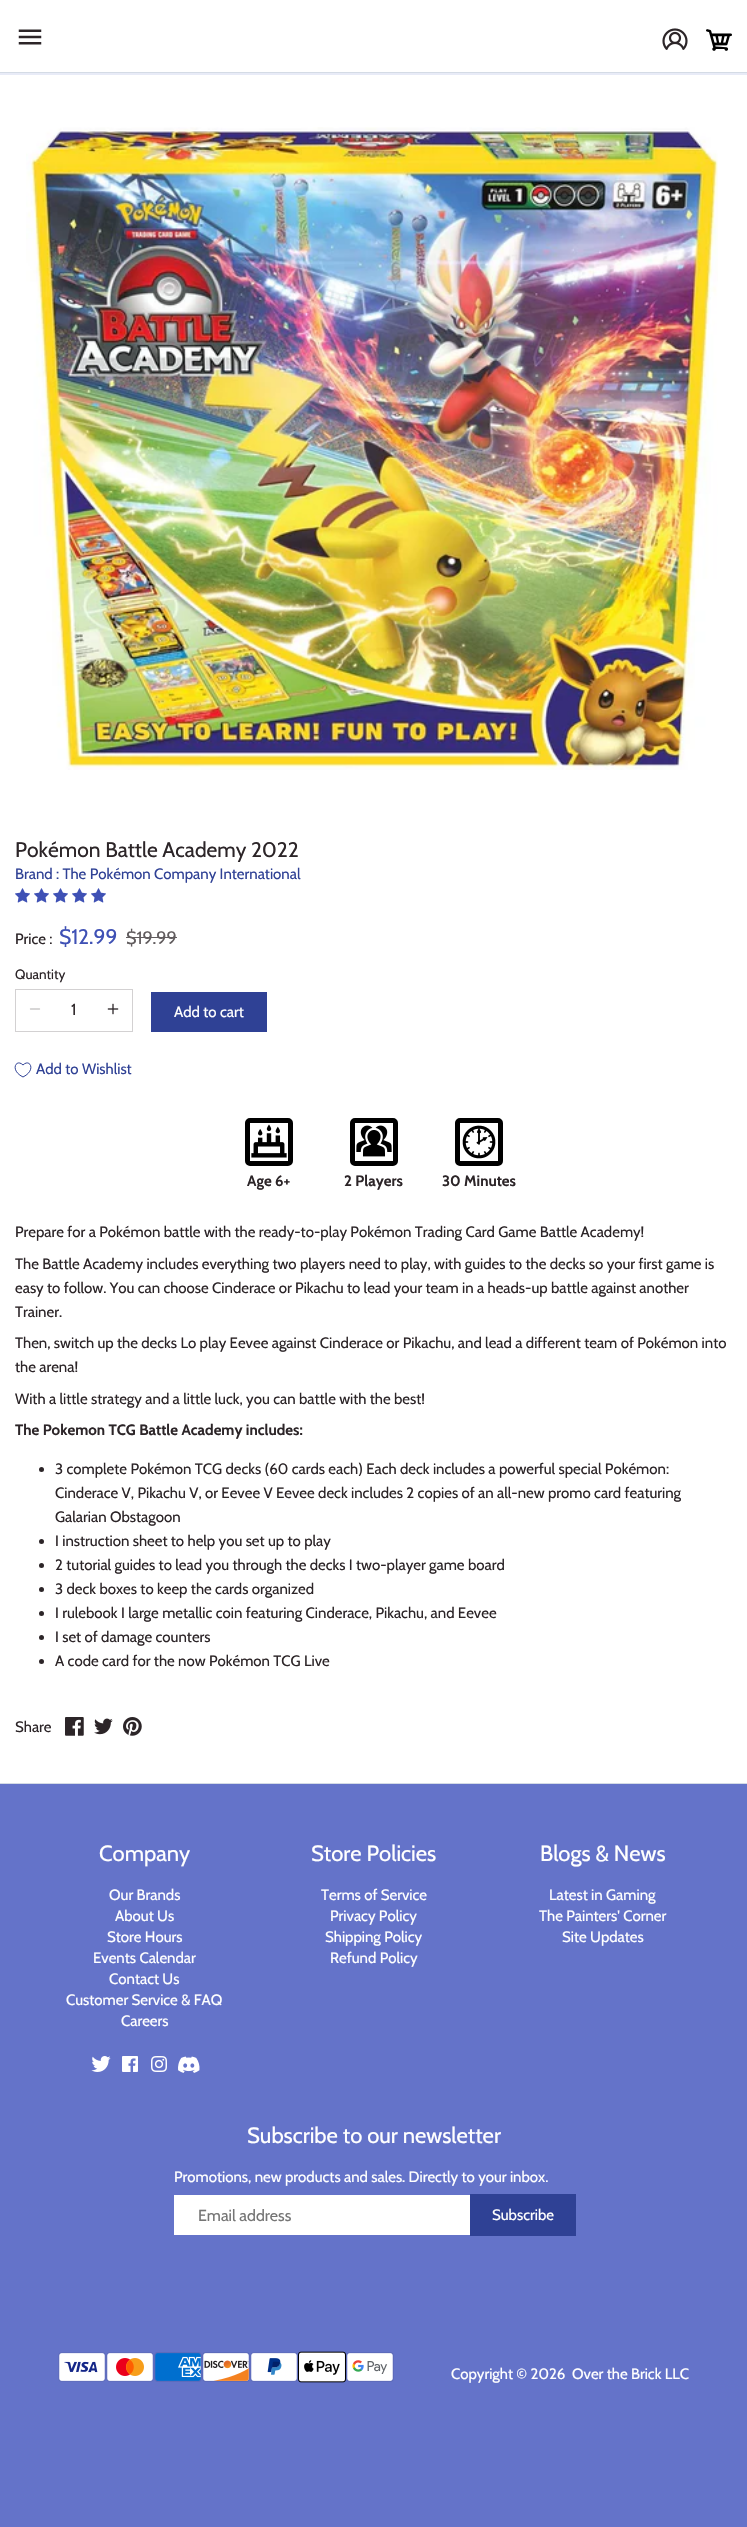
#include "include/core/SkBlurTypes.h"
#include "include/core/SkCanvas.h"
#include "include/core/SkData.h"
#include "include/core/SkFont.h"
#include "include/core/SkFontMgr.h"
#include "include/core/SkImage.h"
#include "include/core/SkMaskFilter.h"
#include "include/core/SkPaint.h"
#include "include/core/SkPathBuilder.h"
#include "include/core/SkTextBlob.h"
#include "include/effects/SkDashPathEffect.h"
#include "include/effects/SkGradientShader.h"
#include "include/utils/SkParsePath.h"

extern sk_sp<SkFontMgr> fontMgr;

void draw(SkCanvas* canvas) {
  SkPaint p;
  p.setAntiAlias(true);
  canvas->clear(SkColorSetRGB(100, 115, 201));
  p.setColor(SK_ColorWHITE);
  canvas->drawRect(SkRect::MakeLTRB(0, 0, 747, 1783), p);
  p.setColor(SkColorSetRGB(212, 219, 229));
  canvas->drawRect(SkRect::MakeLTRB(0, 72, 747, 73), p);
  canvas->drawImageRect(SkImages::DeferredFromEncodedData(SkData::MakeFromFileName("images/1.png")), SkRect::MakeLTRB(18, 29, 42, 45), SkSamplingOptions());
  canvas->drawImageRect(SkImages::DeferredFromEncodedData(SkData::MakeFromFileName("images/2.png")), SkRect::MakeLTRB(662, 28, 688, 50), SkSamplingOptions());
  canvas->drawImageRect(SkImages::DeferredFromEncodedData(SkData::MakeFromFileName("images/3.png")), SkRect::MakeLTRB(706, 29, 732, 51), SkSamplingOptions());
  p.setColor(SkColorSetRGB(232, 235, 247));
  canvas->drawRect(SkRect::MakeLTRB(0, 73, 747, 75), p);
  canvas->drawImageRect(SkImages::DeferredFromEncodedData(SkData::MakeFromFileName("images/4.png")), SkRect::MakeLTRB(26, 127, 718, 770), SkSamplingOptions());
  canvas->drawImageRect(SkImages::DeferredFromEncodedData(SkData::MakeFromFileName("images/5.png")), SkRect::MakeLTRB(15, 888, 30, 903), SkSamplingOptions());
  canvas->drawImageRect(SkImages::DeferredFromEncodedData(SkData::MakeFromFileName("images/5.png")), SkRect::MakeLTRB(34, 888, 49, 903), SkSamplingOptions());
  canvas->drawImageRect(SkImages::DeferredFromEncodedData(SkData::MakeFromFileName("images/5.png")), SkRect::MakeLTRB(53, 888, 68, 903), SkSamplingOptions());
  canvas->drawImageRect(SkImages::DeferredFromEncodedData(SkData::MakeFromFileName("images/5.png")), SkRect::MakeLTRB(72, 888, 87, 903), SkSamplingOptions());
  canvas->drawImageRect(SkImages::DeferredFromEncodedData(SkData::MakeFromFileName("images/5.png")), SkRect::MakeLTRB(91, 888, 106, 903), SkSamplingOptions());
  p.setColor(SkColorSetRGB(97, 92, 94));
  canvas->drawRect(SkRect::MakeLTRB(126, 937, 177, 938), p);
  p.setStyle(SkPaint::kStroke_Style);
  p.setStrokeWidth(1);
  p.setColor(SkColorSetRGB(211, 209, 210));
  canvas->drawRect(SkRect::MakeLTRB(15.5f, 989.5f, 132.5f, 1031.5f), p);
  p.setStrokeWidth(1.3f);
  p.setStrokeCap(SkPaint::kRound_Cap);
  p.setStrokeJoin(SkPaint::kRound_Join);
  p.setColor(SkColorSetRGB(202, 201, 201));
  canvas->drawPath(SkPathBuilder().moveTo(30.5f, 1009).lineTo(39.5f, 1009).detach(), p);
  canvas->drawImageRect(SkImages::DeferredFromEncodedData(SkData::MakeFromFileName("images/6.png")), SkRect::MakeLTRB(107, 1003, 119, 1015), SkSamplingOptions());
  p.setStyle(SkPaint::kFill_Style);
  p.setColor(SkColorSetRGB(47, 65, 149));
  canvas->drawRect(SkRect::MakeLTRB(151, 992, 267, 1032), p);
  p.setStyle(SkPaint::kStroke_Style);
  p.setStrokeWidth(1);
  p.setStrokeCap(SkPaint::kButt_Cap);
  p.setStrokeJoin(SkPaint::kMiter_Join);
  canvas->drawPath(SkPathBuilder().moveTo(23, 1077).cubicTo(9.5f, 1070.5f, 16, 1058, 23, 1065).cubicTo(30, 1058, 36.5f, 1070.5f, 23, 1077).close().detach(), p);
  p.setStrokeWidth(5);
  p.setColor(SK_ColorBLACK);
  canvas->drawRoundRect(SkRect::MakeLTRB(247.5f, 1120.5f, 290.5f, 1163.5f), 2.5f, 2.5f, p);
  canvas->drawImageRect(SkImages::DeferredFromEncodedData(SkData::MakeFromFileName("images/7.png")), SkRect::MakeLTRB(251, 1124, 287, 1158), SkSamplingOptions());
  canvas->drawRoundRect(SkRect::MakeLTRB(352.5f, 1120.5f, 395.5f, 1163.5f), 2.5f, 2.5f, p);
  canvas->drawImageRect(SkImages::DeferredFromEncodedData(SkData::MakeFromFileName("images/8.png")), SkRect::MakeLTRB(356, 1125, 392, 1157), SkSamplingOptions());
  canvas->drawRoundRect(SkRect::MakeLTRB(457.5f, 1120.5f, 500.5f, 1163.5f), 2.5f, 2.5f, p);
  canvas->drawImageRect(SkImages::DeferredFromEncodedData(SkData::MakeFromFileName("images/9.png")), SkRect::MakeLTRB(462, 1125, 496, 1159), SkSamplingOptions());
  p.setStyle(SkPaint::kFill_Style);
  p.setColor(SkColorSetRGB(44, 37, 40));
  canvas->drawCircle(41.5f, 1469.5f, 2.5f, p);
  canvas->drawCircle(41.5f, 1541.5f, 2.5f, p);
  canvas->drawCircle(41.5f, 1565.5f, 2.5f, p);
  canvas->drawCircle(41.5f, 1589.5f, 2.5f, p);
  canvas->drawCircle(41.5f, 1613.5f, 2.5f, p);
  canvas->drawCircle(41.5f, 1637.5f, 2.5f, p);
  canvas->drawCircle(41.5f, 1661.5f, 2.5f, p);
  canvas->drawImageRect(SkImages::DeferredFromEncodedData(SkData::MakeFromFileName("images/10.png")), SkRect::MakeLTRB(65, 1717, 84, 1736), SkSamplingOptions());
  canvas->drawImageRect(SkImages::DeferredFromEncodedData(SkData::MakeFromFileName("images/11.png")), SkRect::MakeLTRB(94, 1718, 113, 1735), SkSamplingOptions());
  canvas->drawImageRect(SkImages::DeferredFromEncodedData(SkData::MakeFromFileName("images/12.png")), SkRect::MakeLTRB(123, 1717, 142, 1736), SkSamplingOptions());
  p.setColor(SkColorSetRGB(212, 219, 229));
  canvas->drawRect(SkRect::MakeLTRB(0, 1783, 747, 1784), p);
  canvas->drawImageRect(SkImages::DeferredFromEncodedData(SkData::MakeFromFileName("images/13.png")), SkRect::MakeLTRB(91, 2056, 111, 2072), SkSamplingOptions());
  canvas->drawImageRect(SkImages::DeferredFromEncodedData(SkData::MakeFromFileName("images/14.png")), SkRect::MakeLTRB(122, 2056, 138, 2072), SkSamplingOptions());
  canvas->drawImageRect(SkImages::DeferredFromEncodedData(SkData::MakeFromFileName("images/15.png")), SkRect::MakeLTRB(151, 2056, 167, 2072), SkSamplingOptions());
  canvas->drawImageRect(SkImages::DeferredFromEncodedData(SkData::MakeFromFileName("images/16.png")), SkRect::MakeLTRB(178, 2056, 200, 2073), SkSamplingOptions());
  p.setColor(SK_ColorWHITE);
  canvas->drawRect(SkRect::MakeLTRB(174, 2195, 470, 2235), p);
  p.setColor(SkColorSetRGB(47, 65, 149));
  canvas->drawRect(SkRect::MakeLTRB(470, 2194, 576, 2236), p);
  canvas->drawImageRect(SkImages::DeferredFromEncodedData(SkData::MakeFromFileName("images/17.png")), SkRect::MakeLTRB(58, 2352, 106, 2382), SkSamplingOptions());
  canvas->drawImageRect(SkImages::DeferredFromEncodedData(SkData::MakeFromFileName("images/18.png")), SkRect::MakeLTRB(106, 2352, 154, 2382), SkSamplingOptions());
  canvas->drawImageRect(SkImages::DeferredFromEncodedData(SkData::MakeFromFileName("images/19.png")), SkRect::MakeLTRB(154, 2352, 202, 2382), SkSamplingOptions());
  canvas->drawImageRect(SkImages::DeferredFromEncodedData(SkData::MakeFromFileName("images/20.png")), SkRect::MakeLTRB(202, 2352, 250, 2382), SkSamplingOptions());
  canvas->drawImageRect(SkImages::DeferredFromEncodedData(SkData::MakeFromFileName("images/21.png")), SkRect::MakeLTRB(250, 2352, 298, 2382), SkSamplingOptions());
  canvas->drawImageRect(SkImages::DeferredFromEncodedData(SkData::MakeFromFileName("images/22.png")), SkRect::MakeLTRB(298, 2351, 346, 2383), SkSamplingOptions());
  canvas->drawImageRect(SkImages::DeferredFromEncodedData(SkData::MakeFromFileName("images/23.png")), SkRect::MakeLTRB(346, 2352, 394, 2382), SkSamplingOptions());
  SkFont font1(fontMgr->matchFamilyStyle("Cabin", SkFontStyle::Normal()), 21);
  font1.setSubpixel(true);
  p.setColor(SkColorSetRGB(44, 37, 40));
  canvas->drawString("Pokémon Battle Academy 2022", 15, 857, font1, p);
  SkFont font2(fontMgr->matchFamilyStyle("Cabin", SkFontStyle::Normal()), 15);
  font2.setSubpixel(true);
  p.setColor(SkColorSetRGB(47, 65, 149));
  canvas->drawString("Brand : The Pokémon Company International", 15, 879, font2, p);
  p.setColor(SkColorSetRGB(44, 37, 40));
  canvas->drawString("Price :", 15, 944, font2, p);
  p.setColor(SkColorSetRGB(63, 81, 181));
  canvas->drawString("$12.99", 59, 944, font1, p);
  SkFont font3(fontMgr->matchFamilyStyle("Cabin", SkFontStyle::Normal()), 18);
  font3.setSubpixel(true);
  p.setColor(SkColorSetRGB(97, 92, 94));
  canvas->drawString("$19.99", 126, 944, font3, p);
  SkFont font4(fontMgr->matchFamilyStyle("Cabin", SkFontStyle::Normal()), 13.5f);
  font4.setSubpixel(true);
  p.setColor(SkColorSetRGB(44, 37, 40));
  canvas->drawString("Quantity", 15, 979, font4, p);
  SkFont font5(fontMgr->matchFamilyStyle("Cabin", SkFontStyle::Normal()), 16);
  font5.setSubpixel(true);
  canvas->drawString("1", 71, 1015, font5, p);
  p.setColor(SK_ColorWHITE);
  canvas->drawString("Add to cart", 174, 1017, font2, p);
  p.setColor(SkColorSetRGB(47, 65, 149));
  canvas->drawString("Add to Wishlist", 36, 1074, font2, p);
  SkFont font6(fontMgr->matchFamilyStyle("Cabin", SkFontStyle::Bold()), 15);
  font6.setSubpixel(true);
  p.setColor(SkColorSetRGB(44, 37, 40));
  canvas->drawString("Age 6+", 247, 1186, font6, p);
  canvas->drawString("2 Players", 344, 1186, font6, p);
  canvas->drawString("30 Minutes", 442, 1186, font6, p);
  canvas->drawString("Prepare for a Pokémon battle with the ready-to-play Pokémon Trading Card Game Battle Academy!", 15, 1237, font2, p);
  canvas->drawString("The Battle Academy includes everything two players need to play, with guides to the decks so your first game is", 15, 1269, font2, p);
  canvas->drawString("easy to follow. You can choose Cinderace or Pikachu to lead your team in a heads-up battle against another", 15, 1293, font2, p);
  canvas->drawString("Trainer.", 15, 1317, font2, p);
  canvas->drawString("Then, switch up the decks Lo play Eevee against Cinderace or Pikachu, and lead a different team of Pokémon into", 15, 1348, font2, p);
  canvas->drawString("the arena!", 15, 1372, font2, p);
  canvas->drawString("With a little strategy and a little luck, you can battle with the best!", 15, 1404, font2, p);
  canvas->drawString("The Pokemon TCG Battle Academy includes:", 15, 1435, font6, p);
  canvas->drawString("3 complete Pokémon TCG decks (60 cards each) Each deck includes a powerful special Pokémon:", 55, 1474, font2, p);
  canvas->drawString("Cinderace V, Pikachu V, or Eevee V Eevee deck includes 2 copies of an all-new promo card featuring", 55, 1498, font2, p);
  canvas->drawString("Galarian Obstagoon", 55, 1522, font2, p);
  canvas->drawString("I instruction sheet to help you set up to play", 55, 1546, font2, p);
  canvas->drawString("2 tutorial guides to lead you through the decks I two-player game board", 55, 1570, font2, p);
  canvas->drawString("3 deck boxes to keep the cards organized", 55, 1594, font2, p);
  canvas->drawString("I rulebook I large metallic coin featuring Cinderace, Pikachu, and Eevee", 55, 1618, font2, p);
  canvas->drawString("I set of damage counters", 55, 1642, font2, p);
  canvas->drawString("A code card for the now Pokémon TCG Live", 55, 1666, font2, p);
  canvas->drawString("Share", 15, 1732, font2, p);
  SkFont font7(fontMgr->matchFamilyStyle("Cabin", SkFontStyle::Normal()), 22);
  font7.setSubpixel(true);
  p.setColor(SK_ColorWHITE);
  canvas->drawString("Company", 99, 1861, font7, p);
  canvas->drawString("Our Brands", 109, 1900, font2, p);
  canvas->drawString("About Us", 115, 1921, font2, p);
  canvas->drawString("Store Hours", 107, 1942, font2, p);
  canvas->drawString("Events Calendar", 93, 1963, font2, p);
  canvas->drawString("Contact Us", 109, 1984, font2, p);
  canvas->drawString("Customer Service & FAQ", 66, 2005, font2, p);
  canvas->drawString("Careers", 121, 2026, font2, p);
  canvas->drawString("Store Policies", 311, 1861, font7, p);
  canvas->drawString("Terms of Service", 321, 1900, font2, p);
  canvas->drawString("Privacy Policy", 330, 1921, font2, p);
  canvas->drawString("Shipping Policy", 325, 1942, font2, p);
  canvas->drawString("Refund Policy", 330, 1963, font2, p);
  canvas->drawString("Blogs & News", 540, 1861, font7, p);
  canvas->drawString("Latest in Gaming", 549, 1900, font2, p);
  canvas->drawString("The Painters' Corner", 539, 1921, font2, p);
  canvas->drawString("Site Updates", 562, 1942, font2, p);
  canvas->drawString("Subscribe to our newsletter", 247, 2143, font7, p);
  canvas->drawString("Promotions, new products and sales. Directly to your inbox.", 174, 2182, font2, p);
  p.setColor(SkColorSetRGB(117, 117, 117));
  canvas->drawString("Email address", 198, 2221, font5, p);
  p.setColor(SK_ColorWHITE);
  canvas->drawString("Subscribe", 492, 2220, font2, p);
  canvas->drawString("Copyright © 2026", 451, 2379, font2, p);
  canvas->drawString("Over the Brick LLC", 572, 2379, font2, p);
}
